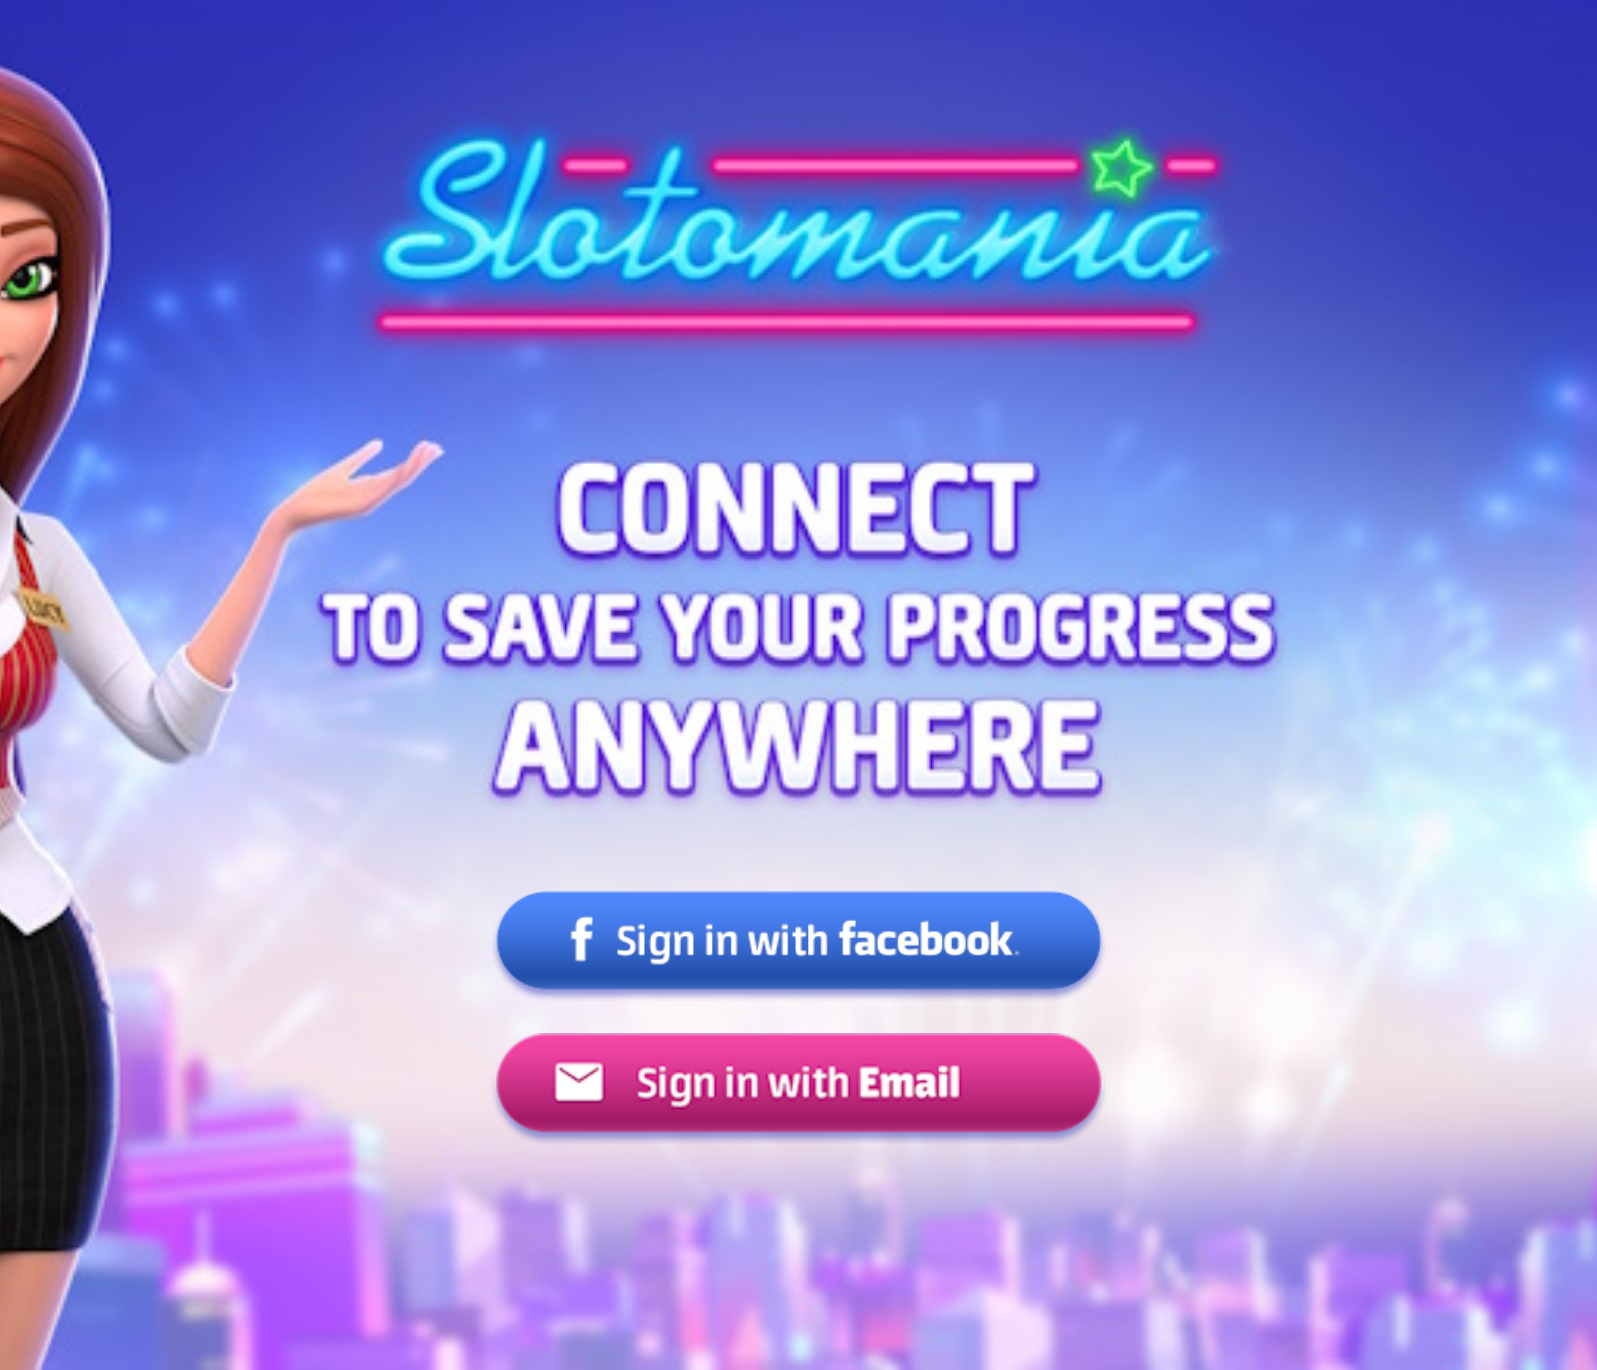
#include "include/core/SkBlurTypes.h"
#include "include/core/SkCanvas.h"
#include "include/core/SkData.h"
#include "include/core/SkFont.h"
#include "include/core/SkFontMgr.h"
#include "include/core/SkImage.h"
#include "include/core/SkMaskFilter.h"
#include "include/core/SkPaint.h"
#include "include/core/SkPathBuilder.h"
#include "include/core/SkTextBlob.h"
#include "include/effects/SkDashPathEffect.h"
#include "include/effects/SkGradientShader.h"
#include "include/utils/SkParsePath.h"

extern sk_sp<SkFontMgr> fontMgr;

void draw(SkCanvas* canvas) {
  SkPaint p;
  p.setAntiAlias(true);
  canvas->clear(SK_ColorWHITE);
  canvas->drawImageRect(SkImages::DeferredFromEncodedData(SkData::MakeFromFileName("images/1.png")), SkRect::MakeLTRB(0, 0, 1597, 1370), SkSamplingOptions());
  canvas->drawImageRect(SkImages::DeferredFromEncodedData(SkData::MakeFromFileName("images/2.png")), SkRect::MakeLTRB(491, 891, 1106, 1001), SkSamplingOptions());
  canvas->drawImageRect(SkImages::DeferredFromEncodedData(SkData::MakeFromFileName("images/3.png")), SkRect::MakeLTRB(491, 1033, 1106, 1144), SkSamplingOptions());
}
